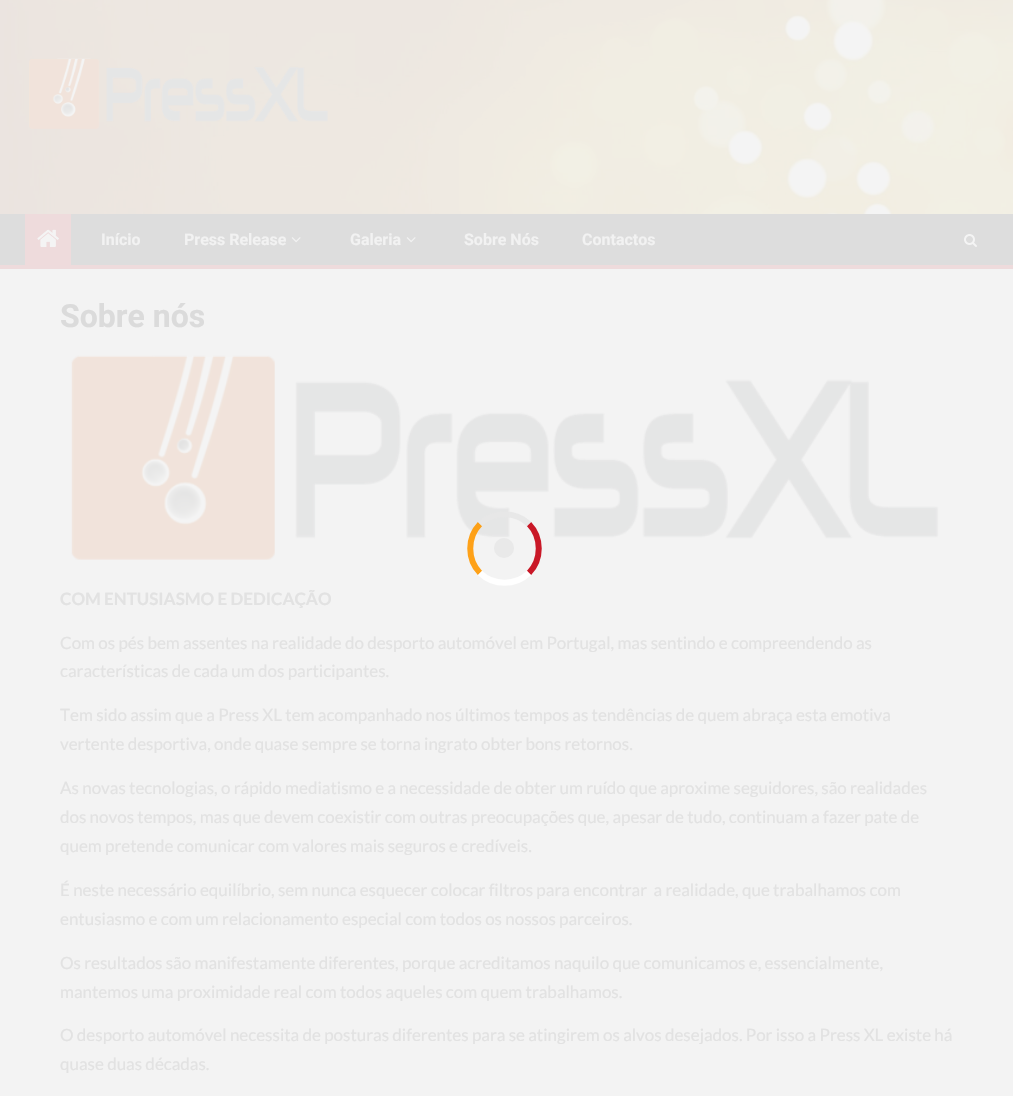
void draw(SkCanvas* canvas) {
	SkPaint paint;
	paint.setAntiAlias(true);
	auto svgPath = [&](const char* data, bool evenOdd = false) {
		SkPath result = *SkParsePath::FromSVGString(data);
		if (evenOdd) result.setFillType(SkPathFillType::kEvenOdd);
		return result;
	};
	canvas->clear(0xfff3f3f3);
	canvas->drawImageRect(SkImages::DeferredFromEncodedData(SkData::MakeFromFileName("img1.png")), SkRect::MakeXYWH(0, 0, 1013, 214), SkSamplingOptions());
	canvas->drawImageRect(SkImages::DeferredFromEncodedData(SkData::MakeFromFileName("img2.png")), SkRect::MakeXYWH(29, 58, 299, 71), SkSamplingOptions());
	paint.setColor(0xffdddddd);
	canvas->drawRect(SkRect::MakeXYWH(0, 214, 1013, 51), paint);
	paint.setColor(0xffeedbdc);
	canvas->drawRect(SkRect::MakeXYWH(0, 265, 1013, 4), paint);
	canvas->drawRect(SkRect::MakeXYWH(25, 214, 46, 51), paint);
	canvas->drawImageRect(SkImages::DeferredFromEncodedData(SkData::MakeFromFileName("img3.png")), SkRect::MakeXYWH(37, 229, 22, 18), SkSamplingOptions());
	SkFont f1(fontMgr->matchFamilyStyle("Roboto", SkFontStyle::Bold()), 16);
	f1.setSubpixel(true);
	paint.setColor(0xfff2f2f2);
	canvas->drawString("Início", 101, 245, f1, paint);
	canvas->drawString("Press Release", 184, 245, f1, paint);
	canvas->drawImageRect(SkImages::DeferredFromEncodedData(SkData::MakeFromFileName("img4.png")), SkRect::MakeXYWH(291, 237, 10, 6), SkSamplingOptions());
	canvas->drawString("Galeria", 350, 245, f1, paint);
	canvas->drawImageRect(SkImages::DeferredFromEncodedData(SkData::MakeFromFileName("img4.png")), SkRect::MakeXYWH(406, 237, 10, 6), SkSamplingOptions());
	canvas->drawString("Sobre Nós", 464, 245, f1, paint);
	canvas->drawString("Contactos", 582, 245, f1, paint);
	canvas->drawImageRect(SkImages::DeferredFromEncodedData(SkData::MakeFromFileName("img5.png")), SkRect::MakeXYWH(964, 234, 13, 13), SkSamplingOptions());
	SkFont f2(fontMgr->matchFamilyStyle("Roboto", SkFontStyle::Bold()), 32);
	f2.setSubpixel(true);
	paint.setColor(0xffdbdbdb);
	canvas->drawString("Sobre nós", 60, 327, f2, paint);
	canvas->drawImageRect(SkImages::DeferredFromEncodedData(SkData::MakeFromFileName("img6.png")), SkRect::MakeXYWH(71, 355, 868, 205), SkSamplingOptions());
	SkFont f3(fontMgr->matchFamilyStyle("Lato", SkFontStyle::Bold()), 17);
	f3.setSubpixel(true);
	paint.setColor(0xffe2e2e2);
	canvas->drawString("COM ENTUSIASMO E DEDICAÇÃO", 60, 605, f3, paint);
	SkFont f4(fontMgr->matchFamilyStyle("Lato", SkFontStyle::Normal()), 17);
	f4.setSubpixel(true);
	canvas->drawString("Com os pés bem assentes na realidade do desporto automóvel em Portugal, mas sentindo e compreendendo as", 60, 649, f4, paint);
	canvas->drawString("características de cada um dos participantes.", 60, 677, f4, paint);
	canvas->drawString("Tem sido assim que a Press XL tem acompanhado nos últimos tempos as tendências de quem abraça esta emotiva", 60, 721, f4, paint);
	canvas->drawString("vertente desportiva, onde quase sempre se torna ingrato obter bons retornos.", 60, 750, f4, paint);
	canvas->drawString("As novas tecnologias, o rápido mediatismo e a necessidade de obter um ruído que aproxime seguidores, são realidades", 60, 794, f4, paint);
	canvas->drawString("dos novos tempos, mas que devem coexistir com outras preocupações que, apesar de tudo, continuam a fazer pate de", 60, 823, f4, paint);
	canvas->drawString("quem pretende comunicar com valores mais seguros e credíveis.", 60, 852, f4, paint);
	canvas->drawString("É neste necessário equilíbrio, sem nunca esquecer colocar filtros para encontrar  a realidade, que trabalhamos com", 60, 896, f4, paint);
	canvas->drawString("entusiasmo e com um relacionamento especial com todos os nossos parceiros.", 60, 925, f4, paint);
	canvas->drawString("Os resultados são manifestamente diferentes, porque acreditamos naquilo que comunicamos e, essencialmente,", 60, 969, f4, paint);
	canvas->drawString("mantemos uma proximidade real com todos aqueles com quem trabalhamos.", 60, 998, f4, paint);
	canvas->drawString("O desporto automóvel necessita de posturas diferentes para se atingirem os alvos desejados. Por isso a Press XL existe há", 60, 1041, f4, paint);
	canvas->drawString("quase duas décadas.", 60, 1070, f4, paint);
	paint.setStroke(true);
	paint.setStrokeWidth(6);
	paint.setColor(0xffc91827);
	canvas->drawPath(svgPath("M529 524C542 537.5 542 559.5 529 573"), paint);
	paint.setColor(0xe6ff9800);
	canvas->drawPath(svgPath("M480 573C467 559.5 467 537.5 480 524"), paint);
	paint.setColor(0xe6e7e7e7);
	canvas->drawPath(svgPath("M480 524C493.5 511 515.5 511 529 524"), paint);
	paint.setColor(0xffffffff);
	canvas->drawPath(svgPath("M529 573C515.5 586 493.5 586 480 573"), paint);
	paint.setStroke(false);
	paint.setColor(0xffe9e9e9);
	canvas->drawCircle(504, 548, 10, paint);
}
